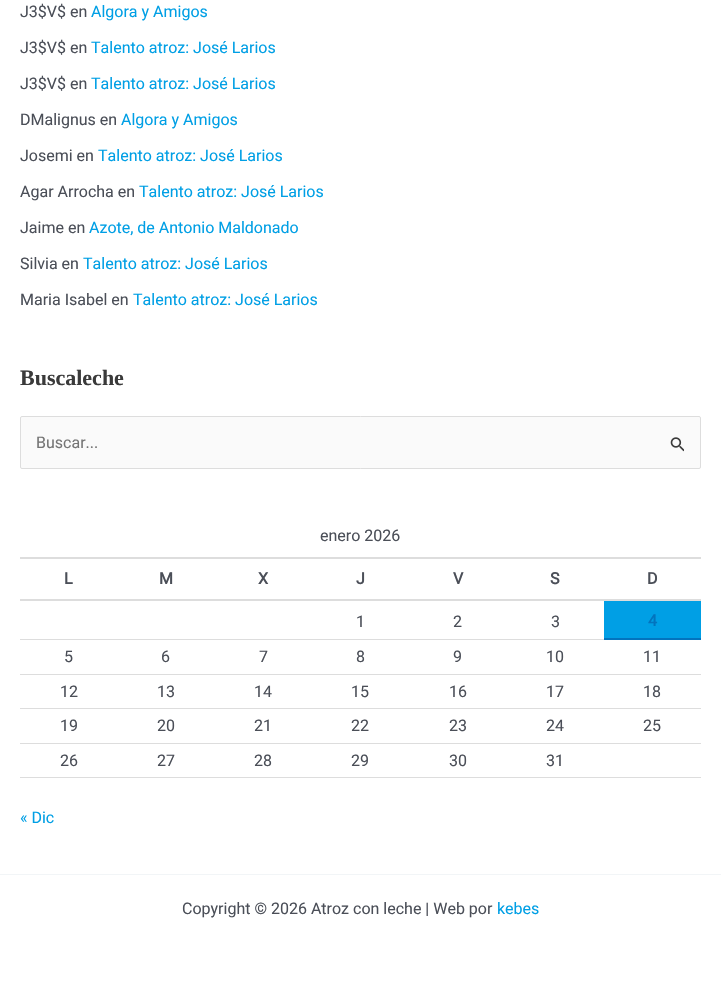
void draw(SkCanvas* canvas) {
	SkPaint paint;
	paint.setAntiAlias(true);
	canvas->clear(0xffffffff);
	SkFont f1(fontMgr->matchFamilyStyle("Roboto", SkFontStyle::Normal()), 16);
	f1.setSubpixel(true);
	paint.setColor(0xff4b4f58);
	canvas->drawString("J3$V$ en", 20, 17, f1, paint);
	paint.setColor(0xff009fe5);
	canvas->drawString("Algora y Amigos", 91, 17, f1, paint);
	paint.setColor(0xff4b4f58);
	canvas->drawString("J3$V$ en", 20, 53, f1, paint);
	paint.setColor(0xff009fe5);
	canvas->drawString("Talento atroz: José Larios", 91, 53, f1, paint);
	paint.setColor(0xff4b4f58);
	canvas->drawString("J3$V$ en", 20, 89, f1, paint);
	paint.setColor(0xff009fe5);
	canvas->drawString("Talento atroz: José Larios", 91, 89, f1, paint);
	paint.setColor(0xff4b4f58);
	canvas->drawString("DMalignus en", 20, 125, f1, paint);
	paint.setColor(0xff009fe5);
	canvas->drawString("Algora y Amigos", 121, 125, f1, paint);
	paint.setColor(0xff4b4f58);
	canvas->drawString("Josemi en", 20, 161, f1, paint);
	paint.setColor(0xff009fe5);
	canvas->drawString("Talento atroz: José Larios", 98, 161, f1, paint);
	paint.setColor(0xff4b4f58);
	canvas->drawString("Agar Arrocha en", 20, 197, f1, paint);
	paint.setColor(0xff009fe5);
	canvas->drawString("Talento atroz: José Larios", 139, 197, f1, paint);
	paint.setColor(0xff4b4f58);
	canvas->drawString("Jaime en", 20, 233, f1, paint);
	paint.setColor(0xff009fe5);
	canvas->drawString("Azote, de Antonio Maldonado", 89, 233, f1, paint);
	paint.setColor(0xff4b4f58);
	canvas->drawString("Silvia en", 20, 269, f1, paint);
	paint.setColor(0xff009fe5);
	canvas->drawString("Talento atroz: José Larios", 83, 269, f1, paint);
	paint.setColor(0xff4b4f58);
	canvas->drawString("Maria Isabel en", 20, 305, f1, paint);
	paint.setColor(0xff009fe5);
	canvas->drawString("Talento atroz: José Larios", 133, 305, f1, paint);
	SkFont f2(fontMgr->matchFamilyStyle("Liberation Serif", SkFontStyle::Bold()), 22);
	f2.setSubpixel(true);
	paint.setColor(0xff3a3a3a);
	canvas->drawString("Buscaleche", 20, 385, f2, paint);
	paint.setColor(0xfffafafa);
	canvas->drawRoundRect(SkRect::MakeXYWH(20.5, 416.5, 680, 52), 1.5, 1.5, paint);
	paint.setStroke(true);
	paint.setStrokeWidth(1);
	paint.setColor(0xffdddddd);
	canvas->drawRoundRect(SkRect::MakeXYWH(20.5, 416.5, 680, 52), 1.5, 1.5, paint);
	paint.setStroke(false);
	paint.setColor(0xff757575);
	canvas->drawString("Buscar...", 36, 448, f1, paint);
	canvas->drawImageRect(SkImages::DeferredFromEncodedData(SkData::MakeFromFileName("img1.png")), SkRect::MakeXYWH(670, 437, 14, 15), SkSamplingOptions());
	paint.setColor(0xff4b4f58);
	canvas->drawString("enero 2026", 320, 541, f1, paint);
	paint.setColor(0xffdddddd);
	canvas->drawRect(SkRect::MakeXYWH(20, 557, 681, 2), paint);
	canvas->drawRect(SkRect::MakeXYWH(20, 599, 681, 2), paint);
	SkFont f3(fontMgr->matchFamilyStyle("Roboto", SkFontStyle::Bold()), 16);
	f3.setSubpixel(true);
	paint.setColor(0xff4b4f58);
	canvas->drawString("L", 64, 584, f3, paint);
	canvas->drawString("M", 159, 584, f3, paint);
	canvas->drawString("X", 258, 584, f3, paint);
	canvas->drawString("J", 356, 584, f3, paint);
	canvas->drawString("V", 453, 584, f3, paint);
	canvas->drawString("S", 550, 584, f3, paint);
	canvas->drawString("D", 647, 584, f3, paint);
	canvas->drawString("1", 356, 627, f1, paint);
	canvas->drawString("2", 453, 627, f1, paint);
	canvas->drawString("3", 551, 627, f1, paint);
	paint.setColor(0xff009fe5);
	canvas->drawRect(SkRect::MakeXYWH(604, 601, 97, 37), paint);
	paint.setColor(0xff0274be);
	canvas->drawRect(SkRect::MakeXYWH(604, 638, 97, 2), paint);
	canvas->drawString("4", 648, 626, f3, paint);
	paint.setColor(0xffdddddd);
	canvas->drawRect(SkRect::MakeXYWH(20, 639, 584, 1), paint);
	canvas->drawRect(SkRect::MakeXYWH(20, 674, 681, 1), paint);
	paint.setColor(0xff4b4f58);
	canvas->drawString("5", 64, 662, f1, paint);
	canvas->drawString("6", 161, 662, f1, paint);
	canvas->drawString("7", 259, 662, f1, paint);
	canvas->drawString("8", 356, 662, f1, paint);
	canvas->drawString("9", 453, 662, f1, paint);
	canvas->drawString("10", 546, 662, f1, paint);
	canvas->drawString("11", 643, 662, f1, paint);
	paint.setColor(0xffdddddd);
	canvas->drawRect(SkRect::MakeXYWH(20, 708, 681, 1), paint);
	paint.setColor(0xff4b4f58);
	canvas->drawString("12", 60, 697, f1, paint);
	canvas->drawString("13", 157, 697, f1, paint);
	canvas->drawString("14", 254, 697, f1, paint);
	canvas->drawString("15", 351, 697, f1, paint);
	canvas->drawString("16", 449, 697, f1, paint);
	canvas->drawString("17", 546, 697, f1, paint);
	canvas->drawString("18", 643, 697, f1, paint);
	paint.setColor(0xffdddddd);
	canvas->drawRect(SkRect::MakeXYWH(20, 743, 681, 1), paint);
	paint.setColor(0xff4b4f58);
	canvas->drawString("19", 60, 731, f1, paint);
	canvas->drawString("20", 157, 731, f1, paint);
	canvas->drawString("21", 254, 731, f1, paint);
	canvas->drawString("22", 351, 731, f1, paint);
	canvas->drawString("23", 449, 731, f1, paint);
	canvas->drawString("24", 546, 731, f1, paint);
	canvas->drawString("25", 643, 731, f1, paint);
	paint.setColor(0xffdddddd);
	canvas->drawRect(SkRect::MakeXYWH(20, 777, 681, 1), paint);
	paint.setColor(0xff4b4f58);
	canvas->drawString("26", 60, 766, f1, paint);
	canvas->drawString("27", 157, 766, f1, paint);
	canvas->drawString("28", 254, 766, f1, paint);
	canvas->drawString("29", 351, 766, f1, paint);
	canvas->drawString("30", 449, 766, f1, paint);
	canvas->drawString("31", 546, 766, f1, paint);
	paint.setColor(0xff009fe5);
	canvas->drawString("« Dic", 20, 823, f1, paint);
	paint.setColor(0xfff2f5f7);
	canvas->drawRect(SkRect::MakeXYWH(0, 874, 721, 1), paint);
	paint.setColor(0xff4b4f58);
	canvas->drawString("Copyright © 2026 Atroz con leche | Web por", 182, 914, f1, paint);
	paint.setColor(0xff009fe5);
	canvas->drawString("kebes", 497, 914, f1, paint);
}
